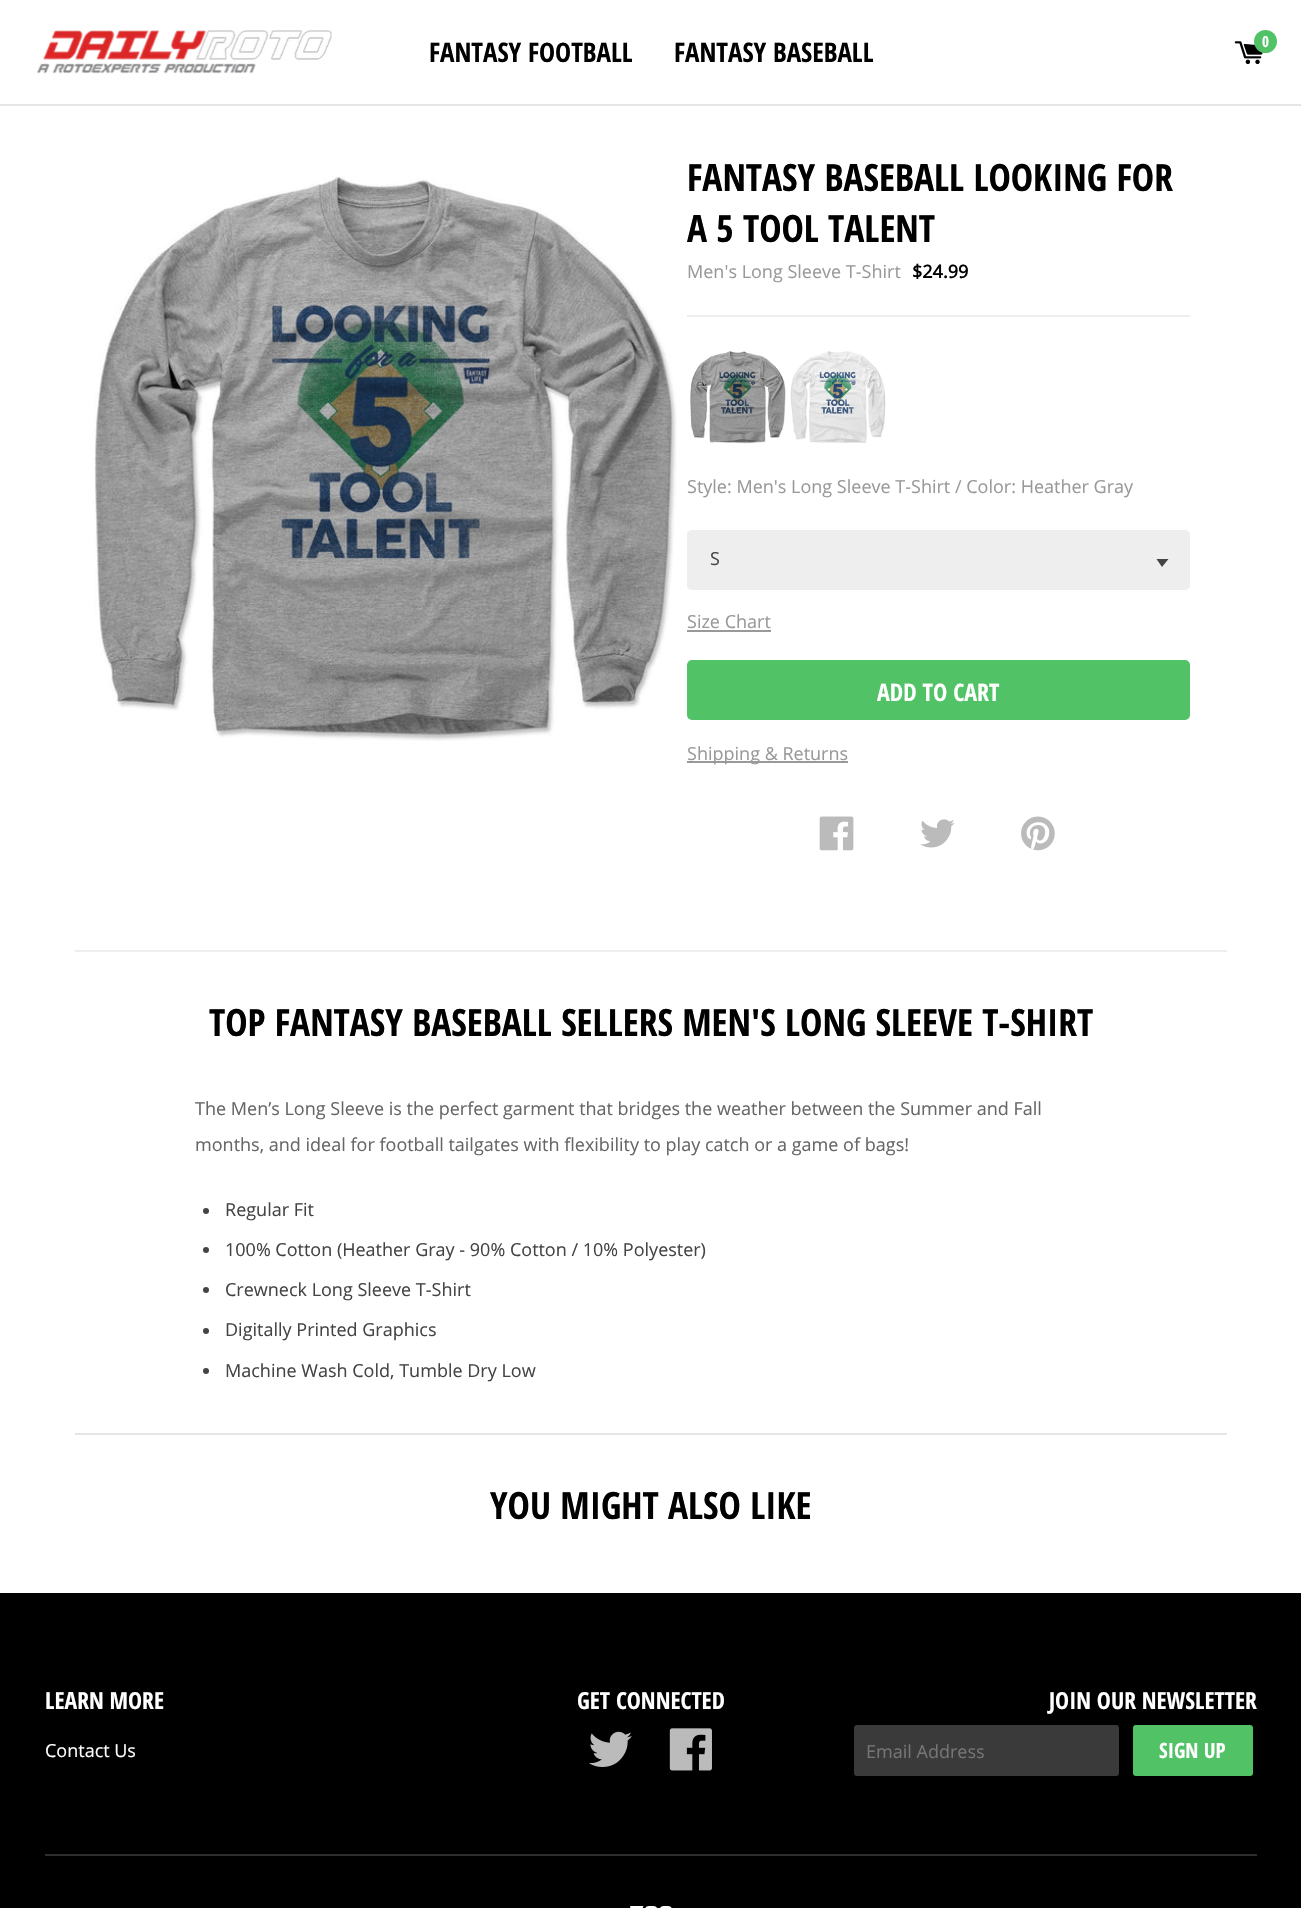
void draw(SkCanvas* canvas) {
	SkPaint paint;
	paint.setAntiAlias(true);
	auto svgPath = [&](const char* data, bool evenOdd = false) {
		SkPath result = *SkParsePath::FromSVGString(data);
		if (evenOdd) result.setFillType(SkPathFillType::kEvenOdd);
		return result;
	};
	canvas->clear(0xffffffff);
	paint.setColor(0xffe5e5e5);
	canvas->drawRect(SkRect::MakeXYWH(0, 104, 1301, 2), paint);
	canvas->drawImageRect(SkImages::DeferredFromEncodedData(SkData::MakeFromFileName("img1.png")), SkRect::MakeXYWH(37, 30, 295, 44), SkSamplingOptions());
	SkFont f1(fontMgr->matchFamilyStyle("Open Sans Condensed", SkFontStyle::Bold()), 27);
	f1.setSubpixel(true);
	paint.setColor(0xff000000);
	canvas->drawString("FANTASY FOOTBALL", 429, 62, f1, paint);
	canvas->drawString("FANTASY BASEBALL", 674, 62, f1, paint);
	canvas->drawImageRect(SkImages::DeferredFromEncodedData(SkData::MakeFromFileName("img2.png")), SkRect::MakeXYWH(1234, 41, 29, 24), SkSamplingOptions());
	paint.setColor(0xff52c266);
	canvas->drawCircle(1265.5, 41.5, 11.5, paint);
	SkFont f2(fontMgr->matchFamilyStyle("Open Sans Condensed", SkFontStyle::Bold()), 15);
	f2.setSubpixel(true);
	paint.setColor(0xffffffff);
	canvas->drawString("0", 1262, 47, f2, paint);
	canvas->drawImageRect(SkImages::DeferredFromEncodedData(SkData::MakeFromFileName("img3.png")), SkRect::MakeXYWH(93, 176, 584, 565), SkSamplingOptions());
	SkFont f3(fontMgr->matchFamilyStyle("Open Sans Condensed", SkFontStyle::Bold()), 37.5);
	f3.setSubpixel(true);
	paint.setColor(0xff000000);
	canvas->drawString("FANTASY BASEBALL LOOKING FOR", 687, 191, f3, paint);
	canvas->drawString("A 5 TOOL TALENT", 687, 242, f3, paint);
	paint.setColor(0xffeeeeee);
	canvas->drawRect(SkRect::MakeXYWH(687, 315, 503, 2), paint);
	SkFont f4(fontMgr->matchFamilyStyle("Open Sans", SkFontStyle::Normal()), 18);
	f4.setSubpixel(true);
	paint.setColor(0xff999999);
	canvas->drawString("Men's Long Sleeve T-Shirt", 687, 278, f4, paint);
	SkFont f5(fontMgr->matchFamilyStyle("Open Sans", SkFontStyle::Bold()), 18);
	f5.setSubpixel(true);
	paint.setColor(0xff000000);
	canvas->drawString("$24.99", 912, 278, f5, paint);
	canvas->drawImageRect(SkImages::DeferredFromEncodedData(SkData::MakeFromFileName("img4.png")), SkRect::MakeXYWH(690, 351, 96, 93), SkSamplingOptions());
	canvas->drawImageRect(SkImages::DeferredFromEncodedData(SkData::MakeFromFileName("img5.png")), SkRect::MakeXYWH(790, 351, 96, 92), SkSamplingOptions());
	paint.setColor(0xff999999);
	canvas->drawString("Style: Men's Long Sleeve T-Shirt / Color: Heather Gray", 687, 493, f4, paint);
	paint.setColor(0xffeeeeee);
	canvas->drawRoundRect(SkRect::MakeXYWH(687, 530, 503, 60), 5, 5, paint);
	paint.setColor(0xff444444);
	canvas->drawString("S", 710, 565, f4, paint);
	canvas->drawPath(svgPath("M1156.5 559L1162 567L1168.5 559Z"), paint);
	paint.setColor(0xff999999);
	canvas->drawString("Size Chart", 687, 628, f4, paint);
	canvas->drawRect(SkRect::MakeXYWH(687, 630, 84, 2), paint);
	paint.setColor(0xff52c266);
	canvas->drawRoundRect(SkRect::MakeXYWH(687, 660, 503, 60), 5, 5, paint);
	SkFont f6(fontMgr->matchFamilyStyle("Open Sans Condensed", SkFontStyle::Bold()), 24);
	f6.setSubpixel(true);
	paint.setColor(0xffffffff);
	canvas->drawString("ADD TO CART", 877, 701, f6, paint);
	paint.setColor(0xff999999);
	canvas->drawRect(SkRect::MakeXYWH(687, 761, 161, 2), paint);
	canvas->drawString("Shipping & Returns", 687, 760, f4, paint);
	canvas->drawImageRect(SkImages::DeferredFromEncodedData(SkData::MakeFromFileName("img6.png")), SkRect::MakeXYWH(819, 816, 35, 35), SkSamplingOptions());
	canvas->drawImageRect(SkImages::DeferredFromEncodedData(SkData::MakeFromFileName("img7.png")), SkRect::MakeXYWH(920, 819, 35, 29), SkSamplingOptions());
	canvas->drawImageRect(SkImages::DeferredFromEncodedData(SkData::MakeFromFileName("img8.png")), SkRect::MakeXYWH(1021, 816, 34, 35), SkSamplingOptions());
	paint.setColor(0xffeeeeee);
	canvas->drawRect(SkRect::MakeXYWH(75, 950, 1152, 2), paint);
	paint.setColor(0xff000000);
	canvas->drawString("TOP FANTASY BASEBALL SELLERS MEN'S LONG SLEEVE T-SHIRT", 209, 1036, f3, paint);
	paint.setColor(0xff666666);
	canvas->drawString("The Men’s Long Sleeve is the perfect garment that bridges the weather between the Summer and Fall", 195, 1115, f4, paint);
	canvas->drawString("months, and ideal for football tailgates with flexibility to play catch or a game of bags!", 195, 1151, f4, paint);
	paint.setColor(0xff444444);
	canvas->drawCircle(206, 1211, 3, paint);
	canvas->drawString("Regular Fit", 225, 1216, f4, paint);
	canvas->drawCircle(206, 1250, 3, paint);
	canvas->drawString("100% Cotton (Heather Gray - 90% Cotton / 10% Polyester)", 225, 1256, f4, paint);
	canvas->drawCircle(206, 1290, 3, paint);
	canvas->drawString("Crewneck Long Sleeve T-Shirt", 225, 1296, f4, paint);
	canvas->drawCircle(206, 1331, 3, paint);
	canvas->drawString("Digitally Printed Graphics", 225, 1336, f4, paint);
	canvas->drawCircle(206, 1371, 3, paint);
	canvas->drawString("Machine Wash Cold, Tumble Dry Low", 225, 1377, f4, paint);
	paint.setColor(0xffe5e5e5);
	canvas->drawRect(SkRect::MakeXYWH(75, 1433, 1152, 2), paint);
	paint.setColor(0xff000000);
	canvas->drawString("YOU MIGHT ALSO LIKE", 490, 1519, f3, paint);
	canvas->drawRect(SkRect::MakeXYWH(0, 1593, 1301, 315), paint);
	SkFont f7(fontMgr->matchFamilyStyle("Open Sans Condensed", SkFontStyle::Bold()), 23.6);
	f7.setSubpixel(true);
	paint.setColor(0xffffffff);
	canvas->drawString("LEARN MORE", 45, 1709, f7, paint);
	canvas->drawString("Contact Us", 45, 1757, f4, paint);
	canvas->drawString("GET CONNECTED", 577, 1709, f7, paint);
	canvas->drawImageRect(SkImages::DeferredFromEncodedData(SkData::MakeFromFileName("img9.png")), SkRect::MakeXYWH(588, 1731, 44, 36), SkSamplingOptions());
	canvas->drawImageRect(SkImages::DeferredFromEncodedData(SkData::MakeFromFileName("img10.png")), SkRect::MakeXYWH(669, 1728, 43, 43), SkSamplingOptions());
	canvas->drawString("JOIN OUR NEWSLETTER", 1049, 1709, f7, paint);
	paint.setColor(0xff3a3a3a);
	canvas->drawRoundRect(SkRect::MakeXYWH(854, 1725, 265, 51), 3, 3, paint);
	paint.setColor(0xff757575);
	canvas->drawString("Email Address", 866, 1758, f4, paint);
	paint.setColor(0xff52c266);
	canvas->drawRoundRect(SkRect::MakeXYWH(1133, 1725, 120, 51), 3, 3, paint);
	SkFont f8(fontMgr->matchFamilyStyle("Open Sans Condensed", SkFontStyle::Bold()), 21);
	f8.setSubpixel(true);
	paint.setColor(0xffffffff);
	canvas->drawString("SIGN UP", 1159, 1758, f8, paint);
	paint.setColor(0xff2e2e2e);
	canvas->drawRect(SkRect::MakeXYWH(45, 1854, 1212, 2), paint);
	canvas->drawImageRect(SkImages::DeferredFromEncodedData(SkData::MakeFromFileName("img11.png")), SkRect::MakeXYWH(630, 1906, 42, 2), SkSamplingOptions());
}
